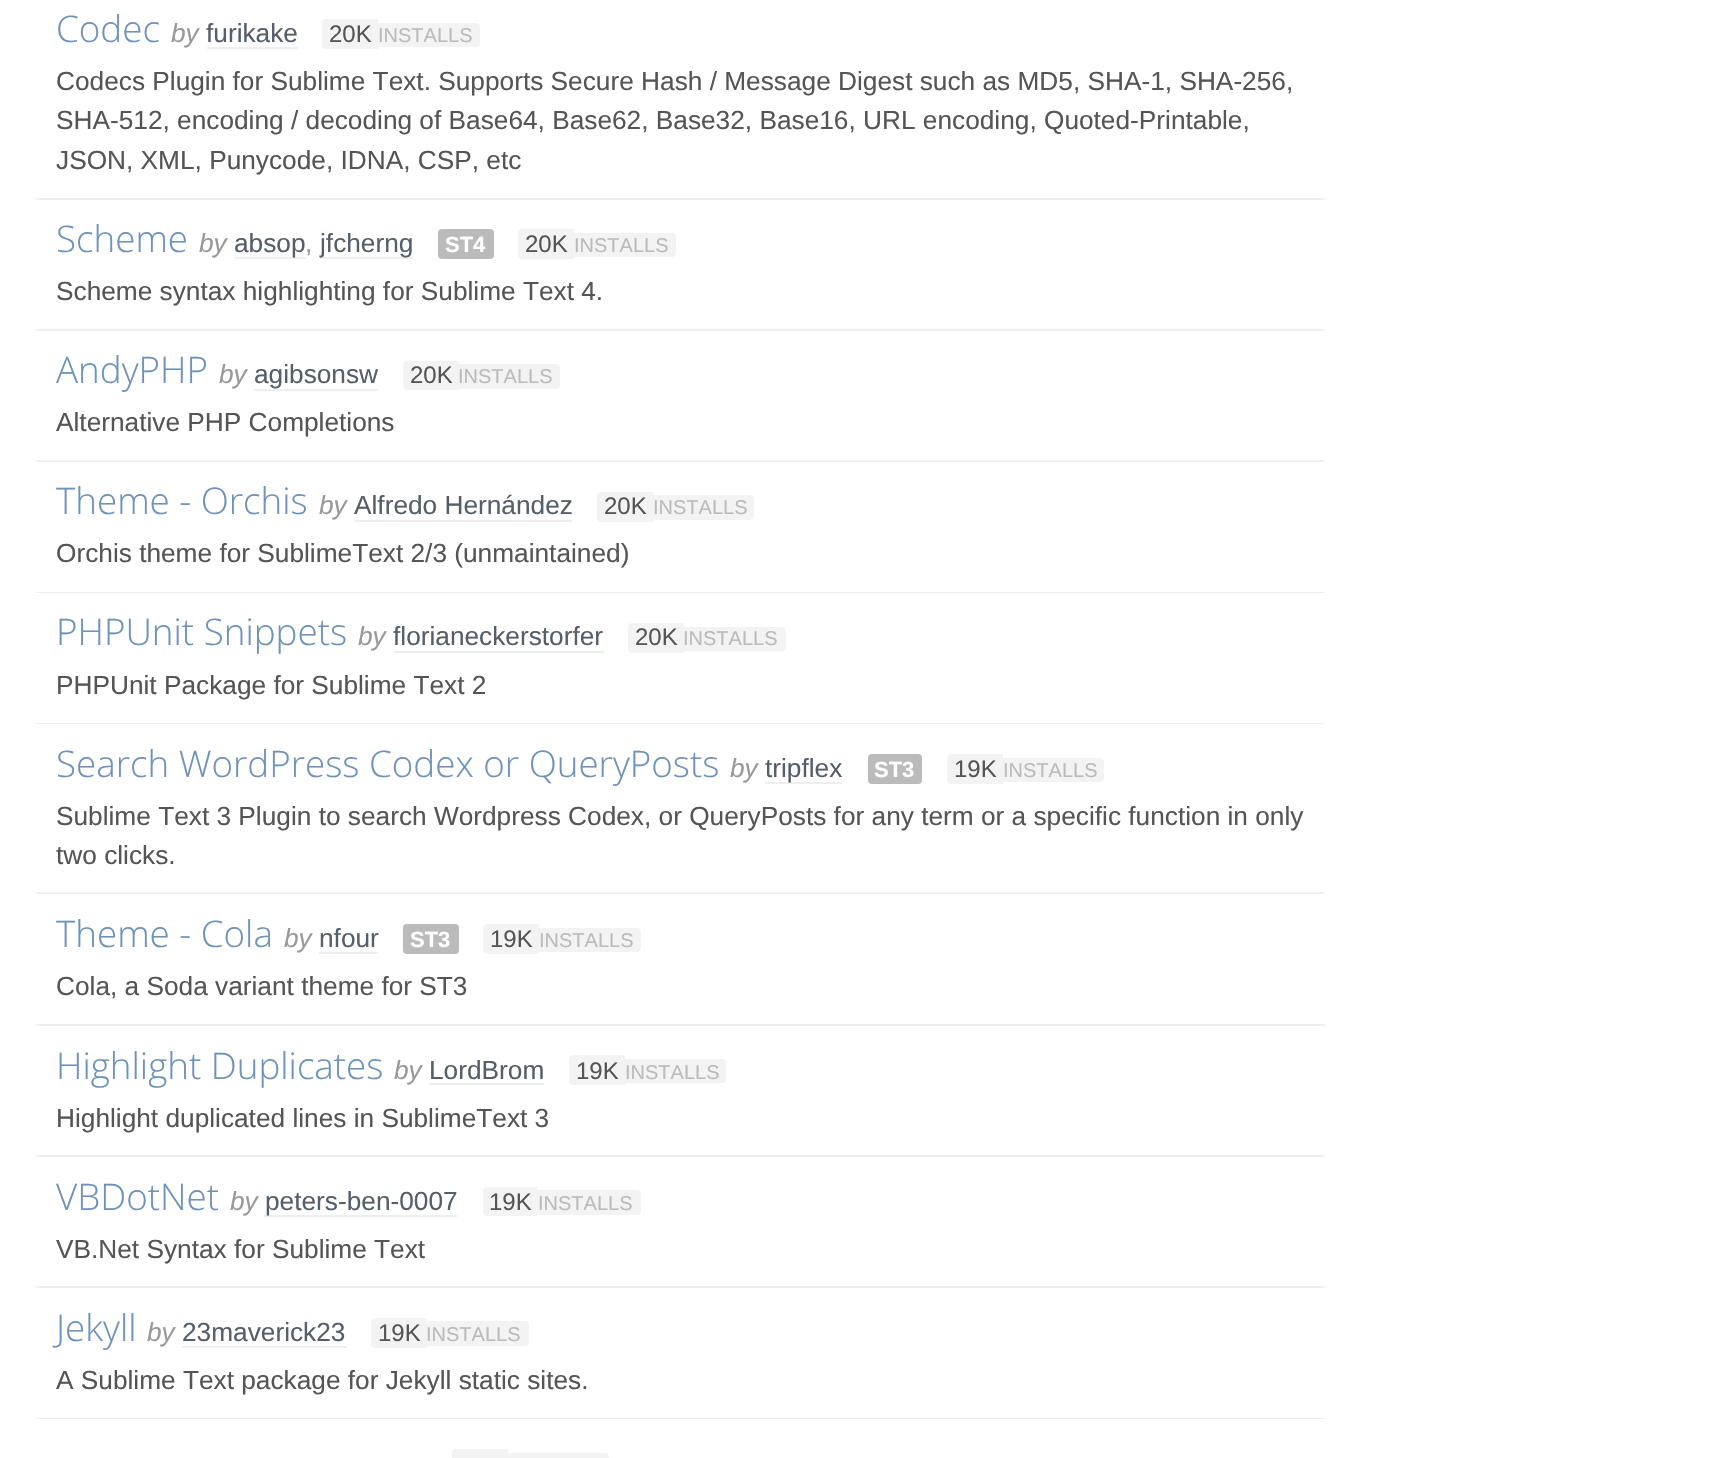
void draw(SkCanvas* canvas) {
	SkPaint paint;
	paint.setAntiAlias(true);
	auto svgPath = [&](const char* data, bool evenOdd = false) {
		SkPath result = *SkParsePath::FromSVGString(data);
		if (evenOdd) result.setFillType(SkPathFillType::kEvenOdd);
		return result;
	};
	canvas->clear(0xffffffff);
	SkFont f1(fontMgr->matchFamilyStyle("Open Sans", SkFontStyle(300, SkFontStyle::kNormal_Width, SkFontStyle::kUpright_Slant)), 36.75);
	f1.setSubpixel(true);
	paint.setColor(0xff6f92ba);
	canvas->drawString("Codec", 56, 42, f1, paint);
	SkFont f2(fontMgr->matchFamilyStyle("Liberation Sans", SkFontStyle::Italic()), 26.25);
	f2.setSubpixel(true);
	paint.setColor(0xff999999);
	canvas->drawString("by", 171, 42, f2, paint);
	SkFont f3(fontMgr->matchFamilyStyle("Liberation Sans", SkFontStyle::Normal()), 26.25);
	f3.setSubpixel(true);
	paint.setColor(0xff555e69);
	canvas->drawString("furikake", 206, 42, f3, paint);
	paint.setColor(0xffeeeeee);
	canvas->drawRect(SkRect::MakeXYWH(207, 47, 91, 2), paint);
	paint.setColor(0xfff3f3f3);
	canvas->drawPath(svgPath("M326 19H378V49H326C324 49 322 47 322 45V23C322 21 324 19 326 19Z"), paint);
	SkFont f4(fontMgr->matchFamilyStyle("Liberation Sans", SkFontStyle::Normal()), 24);
	f4.setSubpixel(true);
	paint.setColor(0xff555555);
	canvas->drawString("20K", 329, 42, f4, paint);
	paint.setColor(0xfff3f3f3);
	canvas->drawPath(svgPath("M378 23H476C478 23 480 25 480 27V43C480 45 478 47 476 47H378Z"), paint);
	SkFont f5(fontMgr->matchFamilyStyle("Liberation Sans", SkFontStyle::Normal()), 20);
	f5.setSubpixel(true);
	paint.setColor(0xffbbbbbb);
	canvas->drawString("INSTALLS", 378, 42, f5, paint);
	paint.setColor(0xff555555);
	canvas->drawString("Codecs Plugin for Sublime Text. Supports Secure Hash / Message Digest such as MD5, SHA-1, SHA-256,", 56, 90, f3, paint);
	canvas->drawString("SHA-512, encoding / decoding of Base64, Base62, Base32, Base16, URL encoding, Quoted-Printable,", 56, 129, f3, paint);
	canvas->drawString("JSON, XML, Punycode, IDNA, CSP, etc", 56, 169, f3, paint);
	paint.setColor(0xffeeeeee);
	canvas->drawPath(svgPath("M35 198H1326L1323 200H38Z"), paint);
	paint.setColor(0xff6f92ba);
	canvas->drawString("Scheme", 56, 252, f1, paint);
	paint.setColor(0xff999999);
	canvas->drawString("by", 199, 252, f2, paint);
	paint.setColor(0xffeeeeee);
	canvas->drawRect(SkRect::MakeXYWH(235, 257, 71, 2), paint);
	paint.setColor(0xff555e69);
	canvas->drawString("absop", 234, 252, f3, paint);
	paint.setColor(0xff999999);
	canvas->drawString(",", 305, 252, f3, paint);
	paint.setColor(0xffeeeeee);
	canvas->drawRect(SkRect::MakeXYWH(320, 257, 93, 2), paint);
	paint.setColor(0xff555e69);
	canvas->drawString("jfcherng", 320, 252, f3, paint);
	paint.setColor(0xffbbbbbb);
	canvas->drawRoundRect(SkRect::MakeXYWH(438, 229, 56, 30), 4, 4, paint);
	SkFont f6(fontMgr->matchFamilyStyle("Liberation Sans", SkFontStyle::Bold()), 22);
	f6.setSubpixel(true);
	paint.setColor(0xffffffff);
	canvas->drawString("ST4", 445, 252, f6, paint);
	paint.setColor(0xfff3f3f3);
	canvas->drawPath(svgPath("M522 229H574V259H522C520 259 518 257 518 255V233C518 231 520 229 522 229Z"), paint);
	paint.setColor(0xff555555);
	canvas->drawString("20K", 525, 252, f4, paint);
	paint.setColor(0xfff3f3f3);
	canvas->drawPath(svgPath("M574 233H672C674 233 676 235 676 237V253C676 255 674 257 672 257H574Z"), paint);
	paint.setColor(0xffbbbbbb);
	canvas->drawString("INSTALLS", 574, 252, f5, paint);
	paint.setColor(0xff555555);
	canvas->drawString("Scheme syntax highlighting for Sublime Text 4.", 56, 300, f3, paint);
	paint.setColor(0xffeeeeee);
	canvas->drawPath(svgPath("M35 329H1326L1323 331H38Z"), paint);
	paint.setColor(0xff6f92ba);
	canvas->drawString("AndyPHP", 56, 383, f1, paint);
	paint.setColor(0xff999999);
	canvas->drawString("by", 219, 383, f2, paint);
	paint.setColor(0xff555e69);
	canvas->drawString("agibsonsw", 254, 383, f3, paint);
	paint.setColor(0xffeeeeee);
	canvas->drawRect(SkRect::MakeXYWH(254, 389, 124, 2), paint);
	paint.setColor(0xfff3f3f3);
	canvas->drawPath(svgPath("M407 361H459V390H407C405 390 403 388 403 386V365C403 363 405 361 407 361Z"), paint);
	paint.setColor(0xff555555);
	canvas->drawString("20K", 410, 383, f4, paint);
	paint.setColor(0xfff3f3f3);
	canvas->drawPath(svgPath("M459 364H556C558 364 560 366 560 368V385C560 387 558 389 556 389H459Z"), paint);
	paint.setColor(0xffbbbbbb);
	canvas->drawString("INSTALLS", 458, 383, f5, paint);
	paint.setColor(0xff555555);
	canvas->drawString("Alternative PHP Completions", 56, 431, f3, paint);
	paint.setColor(0xffeeeeee);
	canvas->drawPath(svgPath("M35 460H1326L1323 462H38Z"), paint);
	paint.setColor(0xff6f92ba);
	canvas->drawString("Theme - Orchis", 56, 514, f1, paint);
	paint.setColor(0xff999999);
	canvas->drawString("by", 319, 514, f2, paint);
	paint.setColor(0xffeeeeee);
	canvas->drawRect(SkRect::MakeXYWH(354, 520, 218, 2), paint);
	paint.setColor(0xff555e69);
	canvas->drawString("Alfredo Hernández", 354, 514, f3, paint);
	paint.setColor(0xfff3f3f3);
	canvas->drawPath(svgPath("M601 492H653V522H601C599 522 597 520 597 518V496C597 494 599 492 601 492Z"), paint);
	paint.setColor(0xff555555);
	canvas->drawString("20K", 604, 514, f4, paint);
	paint.setColor(0xfff3f3f3);
	canvas->drawPath(svgPath("M653 495H750C752 495 754 497 754 499V516C754 518 752 520 750 520H653Z"), paint);
	paint.setColor(0xffbbbbbb);
	canvas->drawString("INSTALLS", 653, 514, f5, paint);
	paint.setColor(0xff555555);
	canvas->drawString("Orchis theme for SublimeText 2/3 (unmaintained)", 56, 562, f3, paint);
	paint.setColor(0xffeeeeee);
	canvas->drawPath(svgPath("M35 592H1326L1323 593H38Z"), paint);
	paint.setColor(0xff6f92ba);
	canvas->drawString("PHPUnit Snippets", 56, 645, f1, paint);
	paint.setColor(0xff999999);
	canvas->drawString("by", 358, 645, f2, paint);
	paint.setColor(0xff555e69);
	canvas->drawString("florianeckerstorfer", 393, 645, f3, paint);
	paint.setColor(0xffeeeeee);
	canvas->drawRect(SkRect::MakeXYWH(394, 651, 210, 2), paint);
	paint.setColor(0xfff3f3f3);
	canvas->drawPath(svgPath("M632 623H684V653H632C630 653 628 651 628 649V627C628 625 630 623 632 623Z"), paint);
	paint.setColor(0xff555555);
	canvas->drawString("20K", 635, 645, f4, paint);
	paint.setColor(0xfff3f3f3);
	canvas->drawPath(svgPath("M684 627H782C784 627 786 629 786 631V647C786 649 784 651 782 651H684Z"), paint);
	paint.setColor(0xffbbbbbb);
	canvas->drawString("INSTALLS", 683, 645, f5, paint);
	paint.setColor(0xff555555);
	canvas->drawString("PHPUnit Package for Sublime Text 2", 56, 694, f3, paint);
	paint.setColor(0xffeeeeee);
	canvas->drawPath(svgPath("M35 723H1326L1323 724H38Z"), paint);
	paint.setColor(0xff6f92ba);
	canvas->drawString("Search WordPress Codex or QueryPosts", 56, 777, f1, paint);
	paint.setColor(0xff999999);
	canvas->drawString("by", 730, 777, f2, paint);
	paint.setColor(0xffeeeeee);
	canvas->drawRect(SkRect::MakeXYWH(765, 782, 77, 2), paint);
	paint.setColor(0xff555e69);
	canvas->drawString("tripflex", 765, 777, f3, paint);
	paint.setColor(0xffbbbbbb);
	canvas->drawRoundRect(SkRect::MakeXYWH(868, 754, 54, 30), 4, 4, paint);
	paint.setColor(0xffffffff);
	canvas->drawString("ST3", 874, 777, f6, paint);
	paint.setColor(0xfff3f3f3);
	canvas->drawPath(svgPath("M951 754H1003V784H951C949 784 947 782 947 780V758C947 756 949 754 951 754Z"), paint);
	paint.setColor(0xff555555);
	canvas->drawString("19K", 954, 777, f4, paint);
	paint.setColor(0xfff3f3f3);
	canvas->drawPath(svgPath("M1003 758H1100C1102 758 1104 760 1104 762V778C1104 780 1102 782 1100 782H1003Z"), paint);
	paint.setColor(0xffbbbbbb);
	canvas->drawString("INSTALLS", 1003, 777, f5, paint);
	paint.setColor(0xff555555);
	canvas->drawString("Sublime Text 3 Plugin to search Wordpress Codex, or QueryPosts for any term or a specific function in only", 56, 825, f3, paint);
	canvas->drawString("two clicks.", 56, 864, f3, paint);
	paint.setColor(0xffeeeeee);
	canvas->drawPath(svgPath("M35 892H1326L1323 894H38Z"), paint);
	paint.setColor(0xff6f92ba);
	canvas->drawString("Theme - Cola", 56, 947, f1, paint);
	paint.setColor(0xff999999);
	canvas->drawString("by", 284, 947, f2, paint);
	paint.setColor(0xff555e69);
	canvas->drawString("nfour", 319, 947, f3, paint);
	paint.setColor(0xffeeeeee);
	canvas->drawRect(SkRect::MakeXYWH(319, 952, 59, 2), paint);
	paint.setColor(0xffbbbbbb);
	canvas->drawRoundRect(SkRect::MakeXYWH(403, 924, 56, 30), 4, 4, paint);
	paint.setColor(0xffffffff);
	canvas->drawString("ST3", 410, 947, f6, paint);
	paint.setColor(0xfff3f3f3);
	canvas->drawPath(svgPath("M487 924H539V954H487C485 954 483 952 483 950V928C483 926 485 924 487 924Z"), paint);
	paint.setColor(0xff555555);
	canvas->drawString("19K", 490, 947, f4, paint);
	paint.setColor(0xfff3f3f3);
	canvas->drawPath(svgPath("M539 928H637C639 928 641 930 641 932V948C641 950 639 952 637 952H539Z"), paint);
	paint.setColor(0xffbbbbbb);
	canvas->drawString("INSTALLS", 539, 947, f5, paint);
	paint.setColor(0xff555555);
	canvas->drawString("Cola, a Soda variant theme for ST3", 56, 995, f3, paint);
	paint.setColor(0xffeeeeee);
	canvas->drawPath(svgPath("M35 1024H1326L1323 1026H38Z"), paint);
	paint.setColor(0xff6f92ba);
	canvas->drawString("Highlight Duplicates", 56, 1079, f1, paint);
	paint.setColor(0xff999999);
	canvas->drawString("by", 394, 1079, f2, paint);
	paint.setColor(0xffeeeeee);
	canvas->drawRect(SkRect::MakeXYWH(429, 1083, 115, 2), paint);
	paint.setColor(0xff555e69);
	canvas->drawString("LordBrom", 429, 1079, f3, paint);
	paint.setColor(0xfff3f3f3);
	canvas->drawPath(svgPath("M573 1055H625V1085H573C571 1085 569 1083 569 1081V1059C569 1057 571 1055 573 1055Z"), paint);
	paint.setColor(0xff555555);
	canvas->drawString("19K", 576, 1079, f4, paint);
	paint.setColor(0xfff3f3f3);
	canvas->drawPath(svgPath("M625 1059H722C724 1059 726 1061 726 1063V1079C726 1081 724 1083 722 1083H625Z"), paint);
	paint.setColor(0xffbbbbbb);
	canvas->drawString("INSTALLS", 625, 1079, f5, paint);
	paint.setColor(0xff555555);
	canvas->drawString("Highlight duplicated lines in SublimeText 3", 56, 1127, f3, paint);
	paint.setColor(0xffeeeeee);
	canvas->drawPath(svgPath("M35 1155H1326L1323 1157H38Z"), paint);
	paint.setColor(0xff6f92ba);
	canvas->drawString("VBDotNet", 56, 1210, f1, paint);
	paint.setColor(0xff999999);
	canvas->drawString("by", 230, 1210, f2, paint);
	paint.setColor(0xffeeeeee);
	canvas->drawRect(SkRect::MakeXYWH(264, 1215, 193, 2), paint);
	paint.setColor(0xff555e69);
	canvas->drawString("peters-ben-0007", 265, 1210, f3, paint);
	paint.setColor(0xfff3f3f3);
	canvas->drawPath(svgPath("M487 1187H537V1216H487C485 1216 483 1214 483 1212V1191C483 1189 485 1187 487 1187Z"), paint);
	paint.setColor(0xff555555);
	canvas->drawString("19K", 489, 1210, f4, paint);
	paint.setColor(0xfff3f3f3);
	canvas->drawPath(svgPath("M537 1190H637C639 1190 641 1192 641 1194V1211C641 1213 639 1215 637 1215H537Z"), paint);
	paint.setColor(0xffbbbbbb);
	canvas->drawString("INSTALLS", 538, 1210, f5, paint);
	paint.setColor(0xff555555);
	canvas->drawString("VB.Net Syntax for Sublime Text", 56, 1258, f3, paint);
	paint.setColor(0xffeeeeee);
	canvas->drawPath(svgPath("M35 1286H1326L1323 1288H38Z"), paint);
	paint.setColor(0xff6f92ba);
	canvas->drawString("Jekyll", 56, 1341, f1, paint);
	paint.setColor(0xff999999);
	canvas->drawString("by", 147, 1341, f2, paint);
	paint.setColor(0xffeeeeee);
	canvas->drawRect(SkRect::MakeXYWH(182, 1346, 165, 2), paint);
	paint.setColor(0xff555e69);
	canvas->drawString("23maverick23", 182, 1341, f3, paint);
	paint.setColor(0xfff3f3f3);
	canvas->drawPath(svgPath("M375 1318H427V1348H375C373 1348 371 1346 371 1344V1322C371 1320 373 1318 375 1318Z"), paint);
	paint.setColor(0xff555555);
	canvas->drawString("19K", 378, 1341, f4, paint);
	paint.setColor(0xfff3f3f3);
	canvas->drawPath(svgPath("M427 1321H525C527 1321 529 1323 529 1325V1342C529 1344 527 1346 525 1346H427Z"), paint);
	paint.setColor(0xffbbbbbb);
	canvas->drawString("INSTALLS", 426, 1341, f5, paint);
	paint.setColor(0xff555555);
	canvas->drawString("A Sublime Text package for Jekyll static sites.", 56, 1389, f3, paint);
	paint.setColor(0xffeeeeee);
	canvas->drawPath(svgPath("M35 1418H1326L1323 1419H38Z"), paint);
	paint.setColor(0xfff3f3f3);
	canvas->drawPath(svgPath("M456 1449H508V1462H456C454 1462 452 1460 452 1458V1453C452 1451 454 1449 456 1449Z"), paint);
	canvas->drawPath(svgPath("M508 1453H605C607 1453 609 1455 609 1457V1458C609 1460 607 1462 605 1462H508Z"), paint);
}
